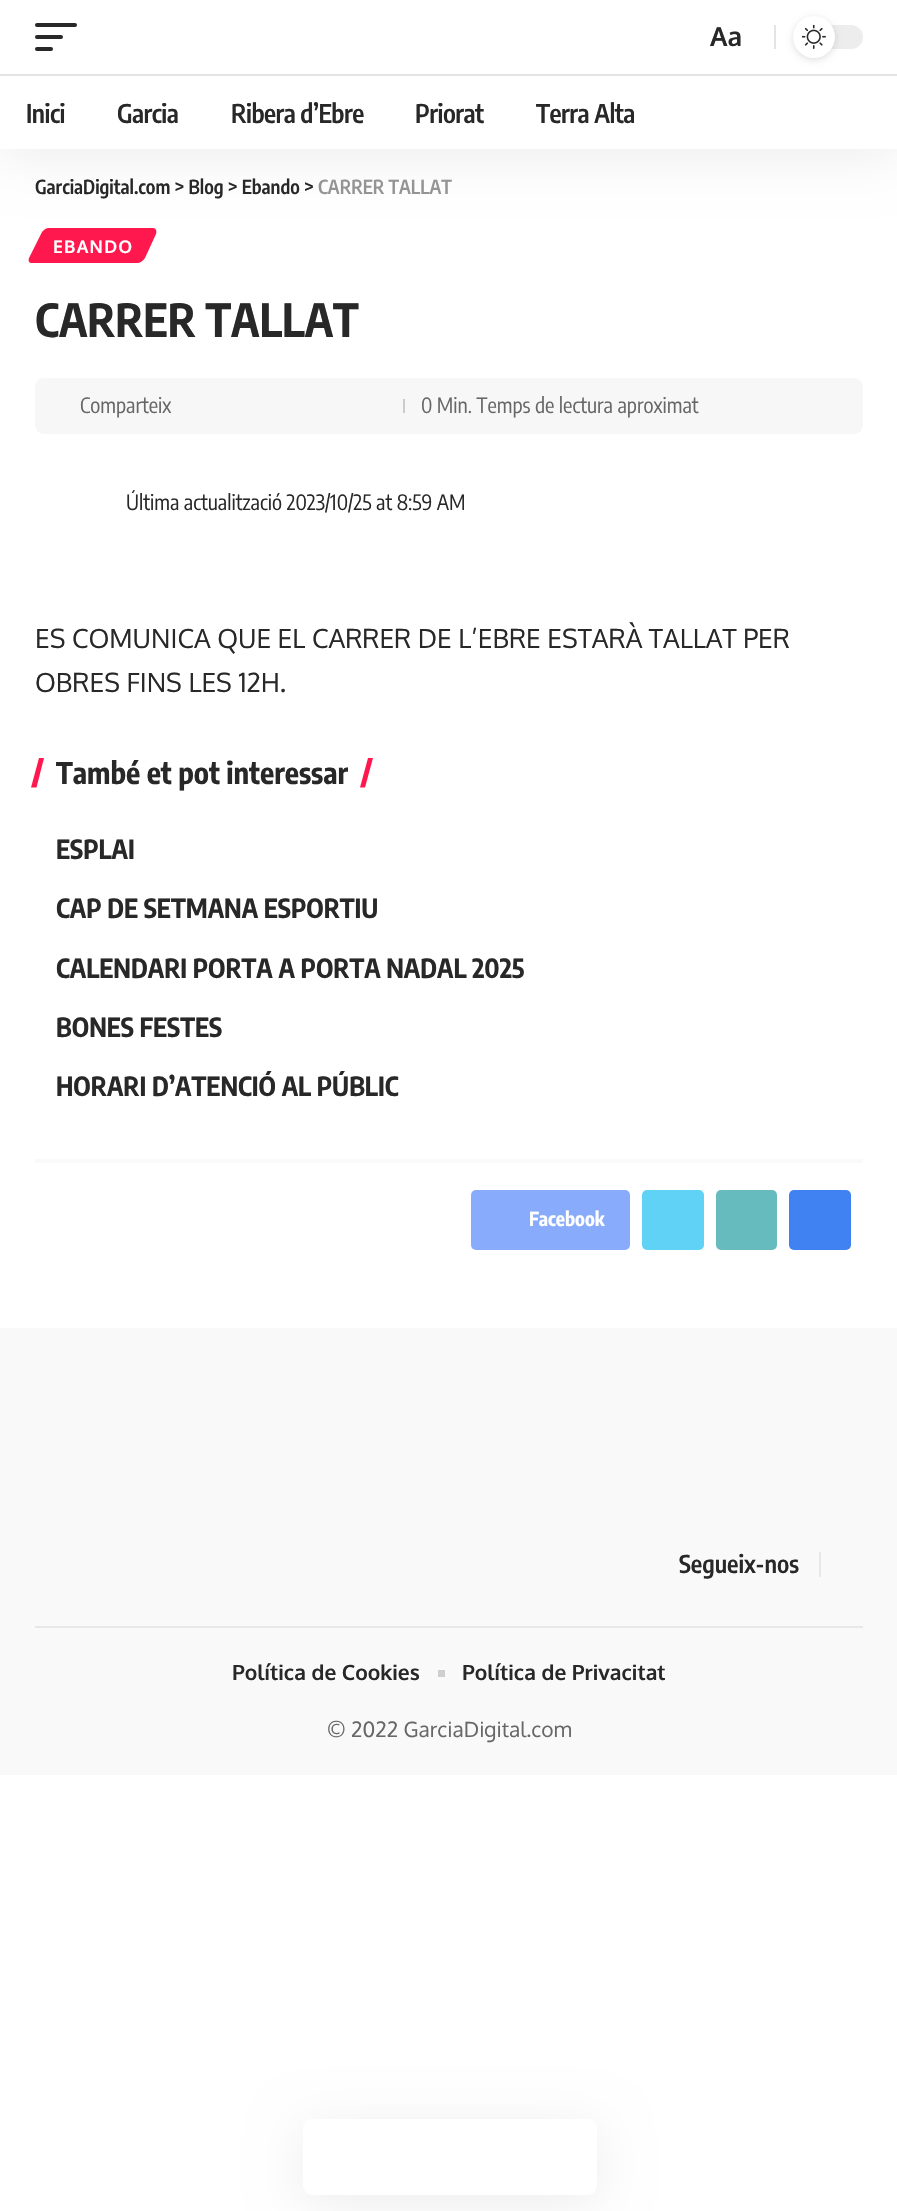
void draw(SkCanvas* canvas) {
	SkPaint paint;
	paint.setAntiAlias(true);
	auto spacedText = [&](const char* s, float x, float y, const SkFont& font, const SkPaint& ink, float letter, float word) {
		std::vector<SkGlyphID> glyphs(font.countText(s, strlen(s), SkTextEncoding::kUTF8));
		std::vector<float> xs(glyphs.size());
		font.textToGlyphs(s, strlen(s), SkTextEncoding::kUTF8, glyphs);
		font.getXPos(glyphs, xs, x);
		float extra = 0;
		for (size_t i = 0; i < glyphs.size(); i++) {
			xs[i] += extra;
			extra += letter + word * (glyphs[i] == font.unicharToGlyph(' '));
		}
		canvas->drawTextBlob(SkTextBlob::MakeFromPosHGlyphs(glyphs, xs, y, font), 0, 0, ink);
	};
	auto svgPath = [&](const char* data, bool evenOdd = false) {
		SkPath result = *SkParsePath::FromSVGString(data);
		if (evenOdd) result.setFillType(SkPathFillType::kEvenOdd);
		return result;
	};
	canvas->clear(0xffffffff);
	paint.setColor(0xffff184e);
	canvas->drawPath(svgPath("M48 228H153C156 228 157 231 156 234L145 258C143 261 140 263 137 263H32C29 263 28 261 29 258L41 234C42 231 46 228 48 228Z"), paint);
	paint.setColor(0x12000000);
	paint.setMaskFilter(SkMaskFilter::MakeBlur(kNormal_SkBlurStyle, 26));
	canvas->drawRect(SkRect::MakeXYWH(0, 7, 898, 149), paint);
	paint.setMaskFilter(nullptr);
	paint.setColor(0xffffffff);
	canvas->drawRect(SkRect::MakeXYWH(0, 0, 897, 149), paint);
	paint.setColor(0xff282828);
	canvas->drawRoundRect(SkRect::MakeXYWH(35, 23, 42, 4), 2, 2, paint);
	canvas->drawRoundRect(SkRect::MakeXYWH(35, 35, 28, 4), 2, 2, paint);
	canvas->drawRoundRect(SkRect::MakeXYWH(35, 47, 18, 4), 2, 2, paint);
	SkFont f1(fontMgr->matchFamilyStyle("Oxygen", SkFontStyle::Bold()), 26.25);
	f1.setSubpixel(true);
	canvas->drawString("Aa", 710, 46, f1, paint);
	paint.setColor(0xffe4e4e4);
	canvas->drawRect(SkRect::MakeXYWH(774, 25, 2, 24), paint);
	paint.setColor(0xffededed);
	canvas->drawRoundRect(SkRect::MakeXYWH(793, 25, 70, 24), 12, 12, paint);
	paint.setColor(0x1f000000);
	paint.setMaskFilter(SkMaskFilter::MakeBlur(kNormal_SkBlurStyle, 3.5));
	canvas->drawRoundRect(SkRect::MakeXYWH(793, 18, 42, 42), 21, 21, paint);
	paint.setMaskFilter(nullptr);
	paint.setColor(0xffffffff);
	canvas->drawCircle(814, 37, 21, paint);
	canvas->drawImageRect(SkImages::DeferredFromEncodedData(SkData::MakeFromFileName("img1.png")), SkRect::MakeXYWH(802, 25, 24, 24), SkSamplingOptions());
	paint.setColor(0xffe4e4e4);
	canvas->drawRect(SkRect::MakeXYWH(0, 74, 897, 2), paint);
	SkFont f2(fontMgr->matchFamilyStyle("Encode Sans Condensed", SkFontStyle(600, SkFontStyle::kNormal_Width, SkFontStyle::kUpright_Slant)), 25.75);
	f2.setSubpixel(true);
	paint.setColor(0xff282828);
	spacedText("Inici", 26, 123, f2, paint, -0.5, 0);
	spacedText("Garcia", 117, 123, f2, paint, -0.5, 0);
	spacedText("Ribera d’Ebre", 231, 123, f2, paint, -0.5, 0);
	spacedText("Priorat", 415, 123, f2, paint, -0.5, 0);
	spacedText("Terra Alta", 536, 123, f2, paint, -0.5, 0);
	SkFont f3(fontMgr->matchFamilyStyle("Encode Sans Condensed", SkFontStyle(600, SkFontStyle::kNormal_Width, SkFontStyle::kUpright_Slant)), 19.25);
	f3.setSubpixel(true);
	canvas->drawString("GarciaDigital.com > Blog > Ebando >", 35, 194, f3, paint);
	paint.setColor(0xff949494);
	canvas->drawString("CARRER TALLAT", 318, 194, f3, paint);
	SkFont f4(fontMgr->matchFamilyStyle("Oxygen", SkFontStyle::Bold()), 17.5);
	f4.setSubpixel(true);
	paint.setColor(0xffffffff);
	spacedText("EBANDO", 53, 253, f4, paint, 1.25, 0);
	SkFont f5(fontMgr->matchFamilyStyle("Encode Sans Condensed", SkFontStyle::Bold()), 45.5);
	f5.setSubpixel(true);
	paint.setColor(0xff282828);
	canvas->drawString("CARRER TALLAT", 35, 337, f5, paint);
	paint.setColor(0xfff7f7f7);
	canvas->drawRoundRect(SkRect::MakeXYWH(35, 378, 828, 56), 9, 9, paint);
	SkFont f6(fontMgr->matchFamilyStyle("Encode Sans Condensed", SkFontStyle::Normal()), 21);
	f6.setSubpixel(true);
	paint.setColor(0xff676767);
	canvas->drawString("Comparteix", 80, 413, f6, paint);
	paint.setColor(0xffcccccc);
	canvas->drawRect(SkRect::MakeXYWH(403, 399, 2, 14), paint);
	paint.setColor(0xff676767);
	canvas->drawString("0 Min. Temps de lectura aproximat", 421, 413, f6, paint);
	paint.setColor(0xff282828);
	canvas->drawString("Última actualització 2023/10/25 at 8:59 AM", 126, 510, f6, paint);
	SkFont f7(fontMgr->matchFamilyStyle("Oxygen", SkFontStyle::Normal()), 26.25);
	f7.setSubpixel(true);
	canvas->drawString("ES COMUNICA QUE EL CARRER DE L’EBRE ESTARÀ TALLAT PER", 35, 648, f7, paint);
	canvas->drawString("OBRES FINS LES 12H.", 35, 692, f7, paint);
	paint.setColor(0xffff184e);
	canvas->drawPath(svgPath("M368 758H373L365 787.5H360Z"), paint);
	canvas->drawPath(svgPath("M39 758H44L36.5 787.5H31Z"), paint);
	SkFont f8(fontMgr->matchFamilyStyle("Encode Sans Condensed", SkFontStyle::Bold()), 29.75);
	f8.setSubpixel(true);
	paint.setColor(0xff282828);
	canvas->drawString("També et pot interessar", 56, 784, f8, paint);
	SkFont f9(fontMgr->matchFamilyStyle("Encode Sans Condensed", SkFontStyle::Bold()), 26.25);
	f9.setSubpixel(true);
	canvas->drawString("ESPLAI", 56, 859, f9, paint);
	canvas->drawString("CAP DE SETMANA ESPORTIU", 56, 918, f9, paint);
	canvas->drawString("CALENDARI PORTA A PORTA NADAL 2025", 56, 978, f9, paint);
	canvas->drawString("BONES FESTES", 56, 1037, f9, paint);
	canvas->drawString("HORARI D’ATENCIÓ AL PÚBLIC", 56, 1096, f9, paint);
	paint.setColor(0x12000000);
	paint.setMaskFilter(SkMaskFilter::MakeBlur(kNormal_SkBlurStyle, 26));
	canvas->drawRoundRect(SkRect::MakeXYWH(303, 2128, 294, 75), 9, 9, paint);
	paint.setMaskFilter(nullptr);
	paint.setColor(0xffffffff);
	canvas->drawRoundRect(SkRect::MakeXYWH(303, 2119, 294, 76), 9, 9, paint);
	paint.setColor(0xfffafafa);
	canvas->drawRect(SkRect::MakeXYWH(35, 1159, 828, 4), paint);
	paint.setColor(0xff89abfc);
	canvas->drawRoundRect(SkRect::MakeXYWH(471, 1190, 159, 60), 5, 5, paint);
	SkFont f10(fontMgr->matchFamilyStyle("Encode Sans Condensed", SkFontStyle::Bold()), 19.25);
	f10.setSubpixel(true);
	paint.setColor(0xffffffff);
	canvas->drawString("Facebook", 529, 1226, f10, paint);
	paint.setColor(0xff60d2f5);
	canvas->drawRoundRect(SkRect::MakeXYWH(642, 1190, 62, 60), 5, 5, paint);
	paint.setColor(0xff66bbbf);
	canvas->drawRoundRect(SkRect::MakeXYWH(716, 1190, 61, 60), 5, 5, paint);
	paint.setColor(0xff4082f1);
	canvas->drawRoundRect(SkRect::MakeXYWH(789, 1190, 62, 60), 5, 5, paint);
	paint.setColor(0xfff9f9f9);
	canvas->drawRect(SkRect::MakeXYWH(0, 1328, 897, 447), paint);
	paint.setColor(0xffe8e8e8);
	canvas->drawRect(SkRect::MakeXYWH(819, 1552, 2, 25), paint);
	SkFont f11(fontMgr->matchFamilyStyle("Encode Sans Condensed", SkFontStyle(600, SkFontStyle::kNormal_Width, SkFontStyle::kUpright_Slant)), 24.5);
	f11.setSubpixel(true);
	paint.setColor(0xff282828);
	canvas->drawString("Segueix-nos", 679, 1573, f11, paint);
	paint.setColor(0xffe8e8e8);
	canvas->drawRect(SkRect::MakeXYWH(35, 1626, 828, 2), paint);
	SkFont f12(fontMgr->matchFamilyStyle("Oxygen", SkFontStyle::Bold()), 21);
	f12.setSubpixel(true);
	paint.setColor(0xff282828);
	canvas->drawString("Política de Cookies", 232, 1680, f12, paint);
	paint.setColor(0xffcfcfcf);
	canvas->drawRect(SkRect::MakeXYWH(438, 1670, 7, 7), paint);
	paint.setColor(0xff282828);
	canvas->drawString("Política de Privacitat", 462, 1680, f12, paint);
	SkFont f13(fontMgr->matchFamilyStyle("Oxygen", SkFontStyle::Normal()), 21);
	f13.setSubpixel(true);
	paint.setColor(0xff676767);
	canvas->drawString("© 2022 GarciaDigital.com", 327, 1737, f13, paint);
}
